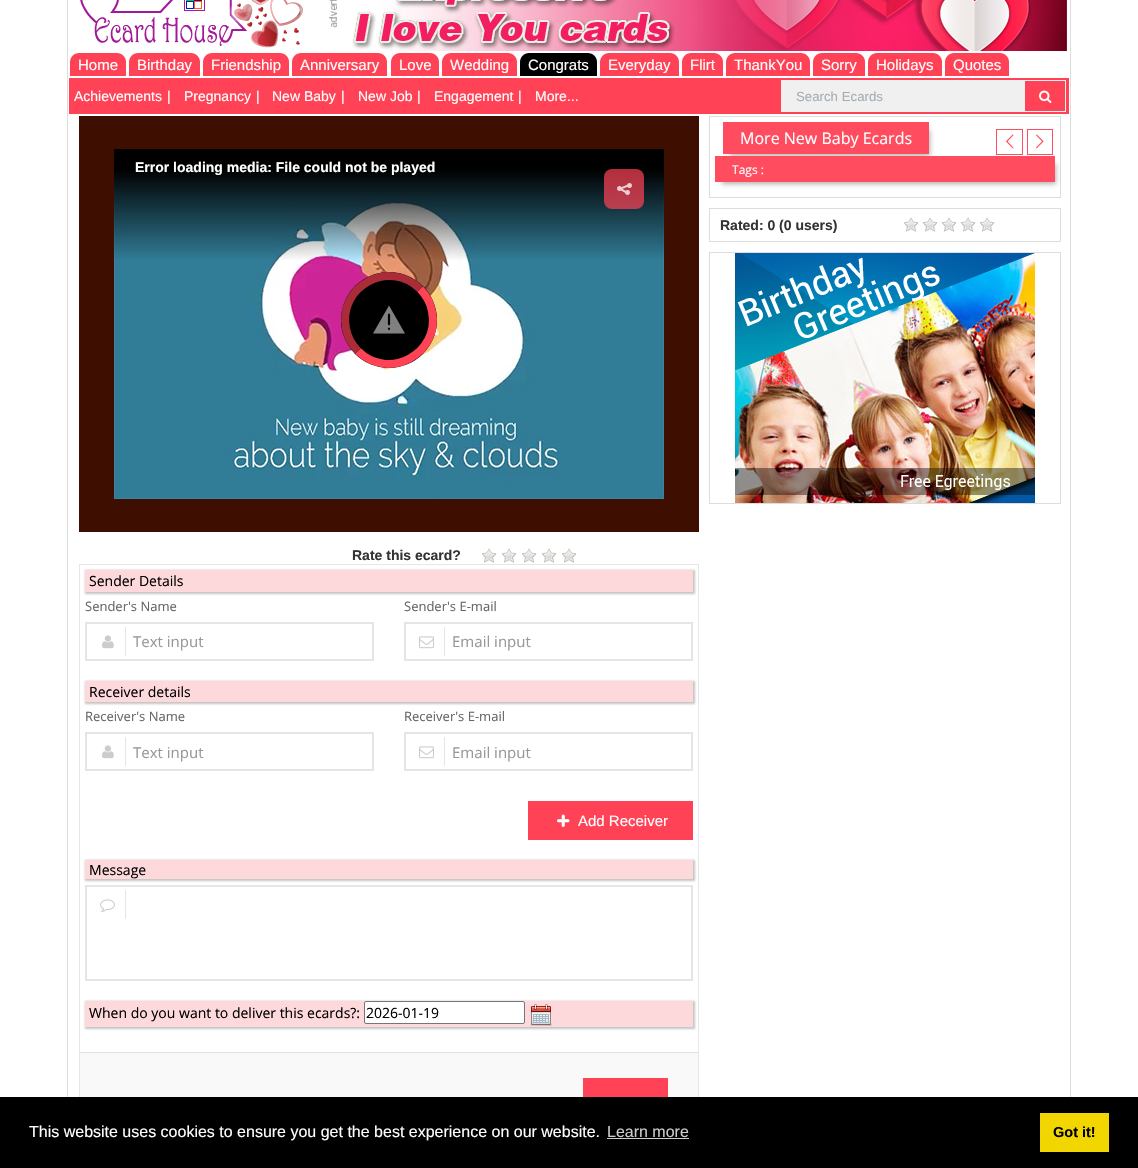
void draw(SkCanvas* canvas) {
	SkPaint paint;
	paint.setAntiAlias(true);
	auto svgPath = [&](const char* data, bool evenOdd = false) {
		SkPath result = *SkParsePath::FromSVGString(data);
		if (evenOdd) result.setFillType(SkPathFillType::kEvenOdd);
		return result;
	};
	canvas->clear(0xffffffff);
	paint.setStroke(true);
	paint.setStrokeWidth(1);
	paint.setColor(0xffdddddd);
	canvas->drawRect(SkRect::MakeXYWH(67.5, -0.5, 1003, 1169), paint);
	canvas->drawImageRect(SkImages::DeferredFromEncodedData(SkData::MakeFromFileName("img1.png")), SkRect::MakeXYWH(80, 0, 223, 48), SkSamplingOptions());
	canvas->drawImageRect(SkImages::DeferredFromEncodedData(SkData::MakeFromFileName("img2.png")), SkRect::MakeXYWH(329, 0, 8, 28), SkSamplingOptions());
	canvas->drawImageRect(SkImages::DeferredFromEncodedData(SkData::MakeFromFileName("img3.png")), SkRect::MakeXYWH(351, 0, 716, 51), SkSamplingOptions());
	paint.setStroke(false);
	paint.setColor(0xffff4256);
	canvas->drawPath(svgPath("M79 53H117C122 53 126 57 126 62V76H70V62C70 57 74 53 79 53Z"), paint);
	SkFont f1(fontMgr->matchFamilyStyle("Liberation Sans", SkFontStyle::Normal()), 15);
	f1.setSubpixel(true);
	paint.setColor(0xffffffff);
	canvas->drawString("Home", 78, 70, f1, paint);
	paint.setColor(0xffff4256);
	canvas->drawPath(svgPath("M138 53H191C196 53 200 57 200 62V76H129V62C129 57 133 53 138 53Z"), paint);
	paint.setColor(0xffffffff);
	canvas->drawString("Birthday", 137, 70, f1, paint);
	paint.setColor(0xffff4256);
	canvas->drawPath(svgPath("M212 53H280C285 53 289 57 289 62V76H203V62C203 57 207 53 212 53Z"), paint);
	paint.setColor(0xffffffff);
	canvas->drawString("Friendship", 211, 70, f1, paint);
	paint.setColor(0xffff4256);
	canvas->drawPath(svgPath("M301 53H378C383 53 387 57 387 62V76H292V62C292 57 296 53 301 53Z"), paint);
	paint.setColor(0xffffffff);
	canvas->drawString("Anniversary", 300, 70, f1, paint);
	paint.setColor(0xffff4256);
	canvas->drawPath(svgPath("M400 53H430C435 53 439 57 439 62V76H391V62C391 57 395 53 400 53Z"), paint);
	paint.setColor(0xffffffff);
	canvas->drawString("Love", 399, 70, f1, paint);
	paint.setColor(0xffff4256);
	canvas->drawPath(svgPath("M451 53H508C513 53 517 57 517 62V76H442V62C442 57 446 53 451 53Z"), paint);
	paint.setColor(0xffffffff);
	canvas->drawString("Wedding", 450, 70, f1, paint);
	paint.setColor(0xff000000);
	canvas->drawPath(svgPath("M529 53H588C593 53 597 57 597 62V76H520V62C520 57 524 53 529 53Z"), paint);
	paint.setColor(0xffffffff);
	canvas->drawString("Congrats", 528, 70, f1, paint);
	paint.setColor(0xffff4256);
	canvas->drawPath(svgPath("M609 53H670C675 53 679 57 679 62V76H600V62C600 57 604 53 609 53Z"), paint);
	paint.setColor(0xffffffff);
	canvas->drawString("Everyday", 608, 70, f1, paint);
	paint.setColor(0xffff4256);
	canvas->drawPath(svgPath("M691 53H714C719 53 723 57 723 62V76H682V62C682 57 686 53 691 53Z"), paint);
	paint.setColor(0xffffffff);
	canvas->drawString("Flirt", 690, 70, f1, paint);
	paint.setColor(0xffff4256);
	canvas->drawPath(svgPath("M735 53H801C806 53 810 57 810 62V76H726V62C726 57 730 53 735 53Z"), paint);
	paint.setColor(0xffffffff);
	canvas->drawString("ThankYou", 734, 70, f1, paint);
	paint.setColor(0xffff4256);
	canvas->drawPath(svgPath("M822 53H856C861 53 865 57 865 62V76H813V62C813 57 817 53 822 53Z"), paint);
	paint.setColor(0xffffffff);
	canvas->drawString("Sorry", 821, 70, f1, paint);
	paint.setColor(0xffff4256);
	canvas->drawPath(svgPath("M877 53H933C938 53 942 57 942 62V76H868V62C868 57 872 53 877 53Z"), paint);
	paint.setColor(0xffffffff);
	canvas->drawString("Holidays", 876, 70, f1, paint);
	paint.setColor(0xffff4256);
	canvas->drawPath(svgPath("M954 53H1000C1005 53 1009 57 1009 62V76H945V62C945 57 949 53 954 53Z"), paint);
	paint.setColor(0xffffffff);
	canvas->drawString("Quotes", 953, 70, f1, paint);
	paint.setColor(0xffff4256);
	canvas->drawRect(SkRect::MakeXYWH(69, 78, 1000, 36), paint);
	SkFont f2(fontMgr->matchFamilyStyle("Liberation Sans", SkFontStyle::Normal()), 14);
	f2.setSubpixel(true);
	paint.setColor(0xffffffff);
	canvas->drawString("Achievements", 74, 101, f2, paint);
	canvas->drawString("|", 167, 101, f2, paint);
	canvas->drawString("Pregnancy", 184, 101, f2, paint);
	canvas->drawString("|", 256, 101, f2, paint);
	canvas->drawString("New Baby", 272, 101, f2, paint);
	canvas->drawString("|", 341, 101, f2, paint);
	canvas->drawString("New Job", 358, 101, f2, paint);
	canvas->drawString("|", 417, 101, f2, paint);
	canvas->drawString("Engagement", 434, 101, f2, paint);
	canvas->drawString("|", 518, 101, f2, paint);
	canvas->drawString("More...", 535, 101, f2, paint);
	paint.setColor(0xfff0f0f0);
	canvas->drawRect(SkRect::MakeXYWH(781, 80, 285, 32), paint);
	SkFont f3(fontMgr->matchFamilyStyle("Liberation Sans", SkFontStyle::Normal()), 13.25);
	f3.setSubpixel(true);
	paint.setColor(0xffa5adb2);
	canvas->drawString("Search Ecards", 796, 101, f3, paint);
	paint.setColor(0xffff4256);
	canvas->drawRect(SkRect::MakeXYWH(1025, 81, 40, 30), paint);
	canvas->drawImageRect(SkImages::DeferredFromEncodedData(SkData::MakeFromFileName("img4.png")), SkRect::MakeXYWH(1039, 90, 13, 13), SkSamplingOptions());
	paint.setStroke(true);
	paint.setColor(0xffdddddd);
	canvas->drawRect(SkRect::MakeXYWH(709.5, 116.5, 351, 81), paint);
	paint.setStroke(false);
	paint.setColor(0x4d000000);
	paint.setMaskFilter(SkMaskFilter::MakeBlur(kNormal_SkBlurStyle, 2.5));
	canvas->drawRect(SkRect::MakeXYWH(730, 130, 200, 26), paint);
	paint.setMaskFilter(nullptr);
	paint.setColor(0xffff4c5f);
	canvas->drawRect(SkRect::MakeXYWH(723, 122, 206, 32), paint);
	SkFont f4(fontMgr->matchFamilyStyle("Open Sans", SkFontStyle::Normal()), 16);
	f4.setSubpixel(true);
	paint.setColor(0xffffffff);
	canvas->drawString("More New Baby Ecards", 740, 144, f4, paint);
	paint.setStroke(true);
	paint.setColor(0xffff4c5f);
	canvas->drawRect(SkRect::MakeXYWH(996.5, 129.5, 26, 25), paint);
	canvas->drawImageRect(SkImages::DeferredFromEncodedData(SkData::MakeFromFileName("img5.png")), SkRect::MakeXYWH(1006, 134, 8, 15), SkSamplingOptions());
	canvas->drawRect(SkRect::MakeXYWH(1027.5, 129.5, 25, 25), paint);
	canvas->drawImageRect(SkImages::DeferredFromEncodedData(SkData::MakeFromFileName("img6.png")), SkRect::MakeXYWH(1036, 134, 8, 15), SkSamplingOptions());
	paint.setStroke(false);
	paint.setColor(0x4d000000);
	paint.setMaskFilter(SkMaskFilter::MakeBlur(kNormal_SkBlurStyle, 2.5));
	canvas->drawRect(SkRect::MakeXYWH(722, 164, 334, 20), paint);
	paint.setMaskFilter(nullptr);
	paint.setColor(0xffff4c5f);
	canvas->drawRect(SkRect::MakeXYWH(715, 156, 340, 26), paint);
	SkFont f5(fontMgr->matchFamilyStyle("Open Sans", SkFontStyle::Normal()), 12);
	f5.setSubpixel(true);
	paint.setColor(0xffffffff);
	canvas->drawString("Tags :", 732, 174, f5, paint);
	paint.setColor(0xff3e0e00);
	canvas->drawRect(SkRect::MakeXYWH(79, 116, 620, 416), paint);
	canvas->drawImageRect(SkImages::DeferredFromEncodedData(SkData::MakeFromFileName("img7.png")), SkRect::MakeXYWH(114, 149, 550, 350), SkSamplingOptions());
	SkFont f6(fontMgr->matchFamilyStyle("Liberation Sans", SkFontStyle::Bold()), 14);
	f6.setSubpixel(true);
	paint.setColor(0xffffffff);
	canvas->drawString("Error loading media: File could not be played", 135, 172, f6, paint);
	paint.setColor(0xb3ff4256);
	canvas->drawRoundRect(SkRect::MakeXYWH(604, 169, 40, 40), 8, 8, paint);
	canvas->drawImageRect(SkImages::DeferredFromEncodedData(SkData::MakeFromFileName("img8.png")), SkRect::MakeXYWH(617, 183, 15, 12), SkSamplingOptions());
	paint.setColor(0xff000000);
	canvas->drawCircle(389, 320, 48, paint);
	paint.setStroke(true);
	paint.setStrokeWidth(8);
	paint.setColor(0xffff4256);
	canvas->drawPath(svgPath("M420 289C426 295 430.5 303 432 311.5C440.5 353.5 388.5 381.5 358 351"), paint);
	paint.setColor(0xffaa2c39);
	canvas->drawPath(svgPath("M358 351C352 345 347.5 337 346 328.5C337.5 286.5 389.5 258.5 420 289"), paint);
	canvas->drawImageRect(SkImages::DeferredFromEncodedData(SkData::MakeFromFileName("img9.png")), SkRect::MakeXYWH(373, 305, 32, 29), SkSamplingOptions());
	paint.setStroke(false);
	paint.setColor(0xff333333);
	canvas->drawString("Rate this ecard?", 352, 560, f6, paint);
	canvas->drawImageRect(SkImages::DeferredFromEncodedData(SkData::MakeFromFileName("img10.png")), SkRect::MakeXYWH(481, 548, 16, 15), SkSamplingOptions());
	canvas->drawImageRect(SkImages::DeferredFromEncodedData(SkData::MakeFromFileName("img10.png")), SkRect::MakeXYWH(501, 548, 16, 15), SkSamplingOptions());
	canvas->drawImageRect(SkImages::DeferredFromEncodedData(SkData::MakeFromFileName("img10.png")), SkRect::MakeXYWH(521, 548, 16, 15), SkSamplingOptions());
	canvas->drawImageRect(SkImages::DeferredFromEncodedData(SkData::MakeFromFileName("img10.png")), SkRect::MakeXYWH(541, 548, 16, 15), SkSamplingOptions());
	canvas->drawImageRect(SkImages::DeferredFromEncodedData(SkData::MakeFromFileName("img10.png")), SkRect::MakeXYWH(561, 548, 16, 15), SkSamplingOptions());
	paint.setStroke(true);
	paint.setStrokeWidth(1);
	paint.setColor(0xffe6e6e6);
	canvas->drawRect(SkRect::MakeXYWH(79.5, 564.5, 619, 578), paint);
	paint.setStroke(false);
	paint.setColor(0x59595659);
	paint.setMaskFilter(SkMaskFilter::MakeBlur(kNormal_SkBlurStyle, 1));
	canvas->drawRect(SkRect::MakeXYWH(85, 570, 610, 24), paint);
	paint.setMaskFilter(nullptr);
	paint.setColor(0xfffed9dc);
	canvas->drawRect(SkRect::MakeXYWH(85, 570, 608, 22), paint);
	SkFont f7(fontMgr->matchFamilyStyle("Open Sans", SkFontStyle::Normal()), 14);
	f7.setSubpixel(true);
	paint.setColor(0xff000000);
	canvas->drawString("Sender Details", 89, 586, f7, paint);
	SkFont f8(fontMgr->matchFamilyStyle("Open Sans", SkFontStyle::Normal()), 13);
	f8.setSubpixel(true);
	paint.setColor(0xff666666);
	canvas->drawString("Sender's Name", 85, 611, f8, paint);
	paint.setStroke(true);
	paint.setStrokeWidth(2);
	paint.setColor(0xffe5e5e5);
	canvas->drawRect(SkRect::MakeXYWH(86, 623, 287, 37), paint);
	paint.setStroke(false);
	canvas->drawRect(SkRect::MakeXYWH(125, 627, 1, 29), paint);
	canvas->drawImageRect(SkImages::DeferredFromEncodedData(SkData::MakeFromFileName("img11.png")), SkRect::MakeXYWH(102, 635, 12, 14), SkSamplingOptions());
	SkFont f9(fontMgr->matchFamilyStyle("Open Sans", SkFontStyle::Normal()), 15);
	f9.setSubpixel(true);
	paint.setColor(0xff989898);
	canvas->drawString("Text input", 133, 647, f9, paint);
	paint.setColor(0xff666666);
	canvas->drawString("Sender's E-mail", 404, 611, f8, paint);
	paint.setStroke(true);
	paint.setColor(0xffe5e5e5);
	canvas->drawRect(SkRect::MakeXYWH(405, 623, 287, 37), paint);
	paint.setStroke(false);
	canvas->drawRect(SkRect::MakeXYWH(444, 627, 1, 29), paint);
	canvas->drawImageRect(SkImages::DeferredFromEncodedData(SkData::MakeFromFileName("img12.png")), SkRect::MakeXYWH(419, 636, 15, 13), SkSamplingOptions());
	paint.setColor(0xff989898);
	canvas->drawString("Email input", 452, 647, f9, paint);
	paint.setColor(0x59595659);
	paint.setMaskFilter(SkMaskFilter::MakeBlur(kNormal_SkBlurStyle, 1));
	canvas->drawRect(SkRect::MakeXYWH(85, 681, 610, 23), paint);
	paint.setMaskFilter(nullptr);
	paint.setColor(0xfffed9dc);
	canvas->drawRect(SkRect::MakeXYWH(85, 681, 608, 21), paint);
	paint.setColor(0xff000000);
	canvas->drawString("Receiver details", 89, 697, f7, paint);
	paint.setColor(0xff666666);
	canvas->drawString("Receiver's Name", 85, 721, f8, paint);
	paint.setStroke(true);
	paint.setColor(0xffe5e5e5);
	canvas->drawRect(SkRect::MakeXYWH(86, 733, 287, 37), paint);
	paint.setStroke(false);
	canvas->drawRect(SkRect::MakeXYWH(125, 737, 1, 29), paint);
	canvas->drawImageRect(SkImages::DeferredFromEncodedData(SkData::MakeFromFileName("img11.png")), SkRect::MakeXYWH(102, 745, 12, 14), SkSamplingOptions());
	paint.setColor(0xff989898);
	canvas->drawString("Text input", 133, 758, f9, paint);
	paint.setColor(0xff666666);
	canvas->drawString("Receiver's E-mail", 404, 721, f8, paint);
	paint.setStroke(true);
	paint.setColor(0xffe5e5e5);
	canvas->drawRect(SkRect::MakeXYWH(405, 733, 287, 37), paint);
	paint.setStroke(false);
	canvas->drawRect(SkRect::MakeXYWH(444, 737, 1, 29), paint);
	canvas->drawImageRect(SkImages::DeferredFromEncodedData(SkData::MakeFromFileName("img12.png")), SkRect::MakeXYWH(419, 746, 15, 13), SkSamplingOptions());
	paint.setColor(0xff989898);
	canvas->drawString("Email input", 452, 758, f9, paint);
	paint.setColor(0xffff4256);
	canvas->drawRect(SkRect::MakeXYWH(528, 801, 165, 39), paint);
	canvas->drawImageRect(SkImages::DeferredFromEncodedData(SkData::MakeFromFileName("img13.png")), SkRect::MakeXYWH(557, 814, 13, 13), SkSamplingOptions());
	paint.setColor(0xffffffff);
	canvas->drawString("Add Receiver", 578, 826, f1, paint);
	paint.setColor(0x59595659);
	paint.setMaskFilter(SkMaskFilter::MakeBlur(kNormal_SkBlurStyle, 1));
	canvas->drawRect(SkRect::MakeXYWH(85, 860, 610, 21), paint);
	paint.setMaskFilter(nullptr);
	paint.setColor(0xfffed9dc);
	canvas->drawRect(SkRect::MakeXYWH(85, 860, 608, 19), paint);
	paint.setColor(0xff000000);
	canvas->drawString("Message", 89, 875, f7, paint);
	paint.setStroke(true);
	paint.setColor(0xffe5e5e5);
	canvas->drawRect(SkRect::MakeXYWH(86, 886, 606, 94), paint);
	paint.setStroke(false);
	canvas->drawRect(SkRect::MakeXYWH(125, 890, 1, 29), paint);
	canvas->drawImageRect(SkImages::DeferredFromEncodedData(SkData::MakeFromFileName("img14.png")), SkRect::MakeXYWH(100, 899, 15, 14), SkSamplingOptions());
	paint.setColor(0x59595659);
	paint.setMaskFilter(SkMaskFilter::MakeBlur(kNormal_SkBlurStyle, 1));
	canvas->drawRect(SkRect::MakeXYWH(85, 1001, 610, 28), paint);
	paint.setMaskFilter(nullptr);
	paint.setColor(0xfffed9dc);
	canvas->drawRect(SkRect::MakeXYWH(85, 1001, 608, 26), paint);
	paint.setColor(0xff000000);
	canvas->drawString("When do you want to deliver this ecards?:", 89, 1018, f7, paint);
	paint.setColor(0xffffffff);
	canvas->drawRoundRect(SkRect::MakeXYWH(364.5, 1001.5, 160, 22), 1.5, 1.5, paint);
	paint.setStroke(true);
	paint.setStrokeWidth(1);
	paint.setColor(0xff767676);
	canvas->drawRoundRect(SkRect::MakeXYWH(364.5, 1001.5, 160, 22), 1.5, 1.5, paint);
	paint.setStroke(false);
	paint.setColor(0xff000000);
	canvas->drawString("2026-01-19", 366, 1018, f7, paint);
	canvas->drawImageRect(SkImages::DeferredFromEncodedData(SkData::MakeFromFileName("img15.png")), SkRect::MakeXYWH(530, 1004, 22, 22), SkSamplingOptions());
	paint.setColor(0xfff9f9f9);
	canvas->drawRect(SkRect::MakeXYWH(80, 1053, 618, 44), paint);
	paint.setColor(0xffe0e0e0);
	canvas->drawRect(SkRect::MakeXYWH(80, 1052, 618, 1), paint);
	paint.setColor(0xffff4256);
	canvas->drawRect(SkRect::MakeXYWH(583, 1078, 85, 19), paint);
	paint.setStroke(true);
	paint.setColor(0xffdddddd);
	canvas->drawRect(SkRect::MakeXYWH(709.5, 208.5, 351, 33), paint);
	paint.setStroke(false);
	paint.setColor(0xff333333);
	canvas->drawString("Rated: 0 (0 users)", 720, 230, f6, paint);
	canvas->drawImageRect(SkImages::DeferredFromEncodedData(SkData::MakeFromFileName("img10.png")), SkRect::MakeXYWH(903, 217, 16, 15), SkSamplingOptions());
	canvas->drawImageRect(SkImages::DeferredFromEncodedData(SkData::MakeFromFileName("img10.png")), SkRect::MakeXYWH(922, 217, 16, 15), SkSamplingOptions());
	canvas->drawImageRect(SkImages::DeferredFromEncodedData(SkData::MakeFromFileName("img10.png")), SkRect::MakeXYWH(941, 217, 16, 15), SkSamplingOptions());
	canvas->drawImageRect(SkImages::DeferredFromEncodedData(SkData::MakeFromFileName("img10.png")), SkRect::MakeXYWH(960, 217, 16, 15), SkSamplingOptions());
	canvas->drawImageRect(SkImages::DeferredFromEncodedData(SkData::MakeFromFileName("img10.png")), SkRect::MakeXYWH(979, 217, 16, 15), SkSamplingOptions());
	paint.setStroke(true);
	paint.setColor(0xffdddddd);
	canvas->drawRect(SkRect::MakeXYWH(709.5, 252.5, 351, 251), paint);
	canvas->drawImageRect(SkImages::DeferredFromEncodedData(SkData::MakeFromFileName("img16.png")), SkRect::MakeXYWH(735, 253, 300, 250), SkSamplingOptions());
	paint.setStroke(false);
	paint.setColor(0xff000000);
	canvas->drawRect(SkRect::MakeXYWH(0, 1097, 1138, 71), paint);
	SkFont f10(fontMgr->matchFamilyStyle("Liberation Sans", SkFontStyle::Normal()), 16);
	f10.setSubpixel(true);
	paint.setColor(0xffffffff);
	canvas->drawString("This website uses cookies to ensure you get the best experience on our website.", 29, 1137, f10, paint);
	paint.setColor(0xffcccccc);
	canvas->drawString("Learn more", 607, 1137, f10, paint);
	canvas->drawRect(SkRect::MakeXYWH(607, 1138, 82, 1), paint);
	paint.setColor(0xfff1d600);
	canvas->drawRect(SkRect::MakeXYWH(1040, 1113, 69, 39), paint);
	SkFont f11(fontMgr->matchFamilyStyle("Liberation Sans", SkFontStyle::Bold()), 14.5);
	f11.setSubpixel(true);
	paint.setColor(0xff000000);
	canvas->drawString("Got it!", 1053, 1137, f11, paint);
}
